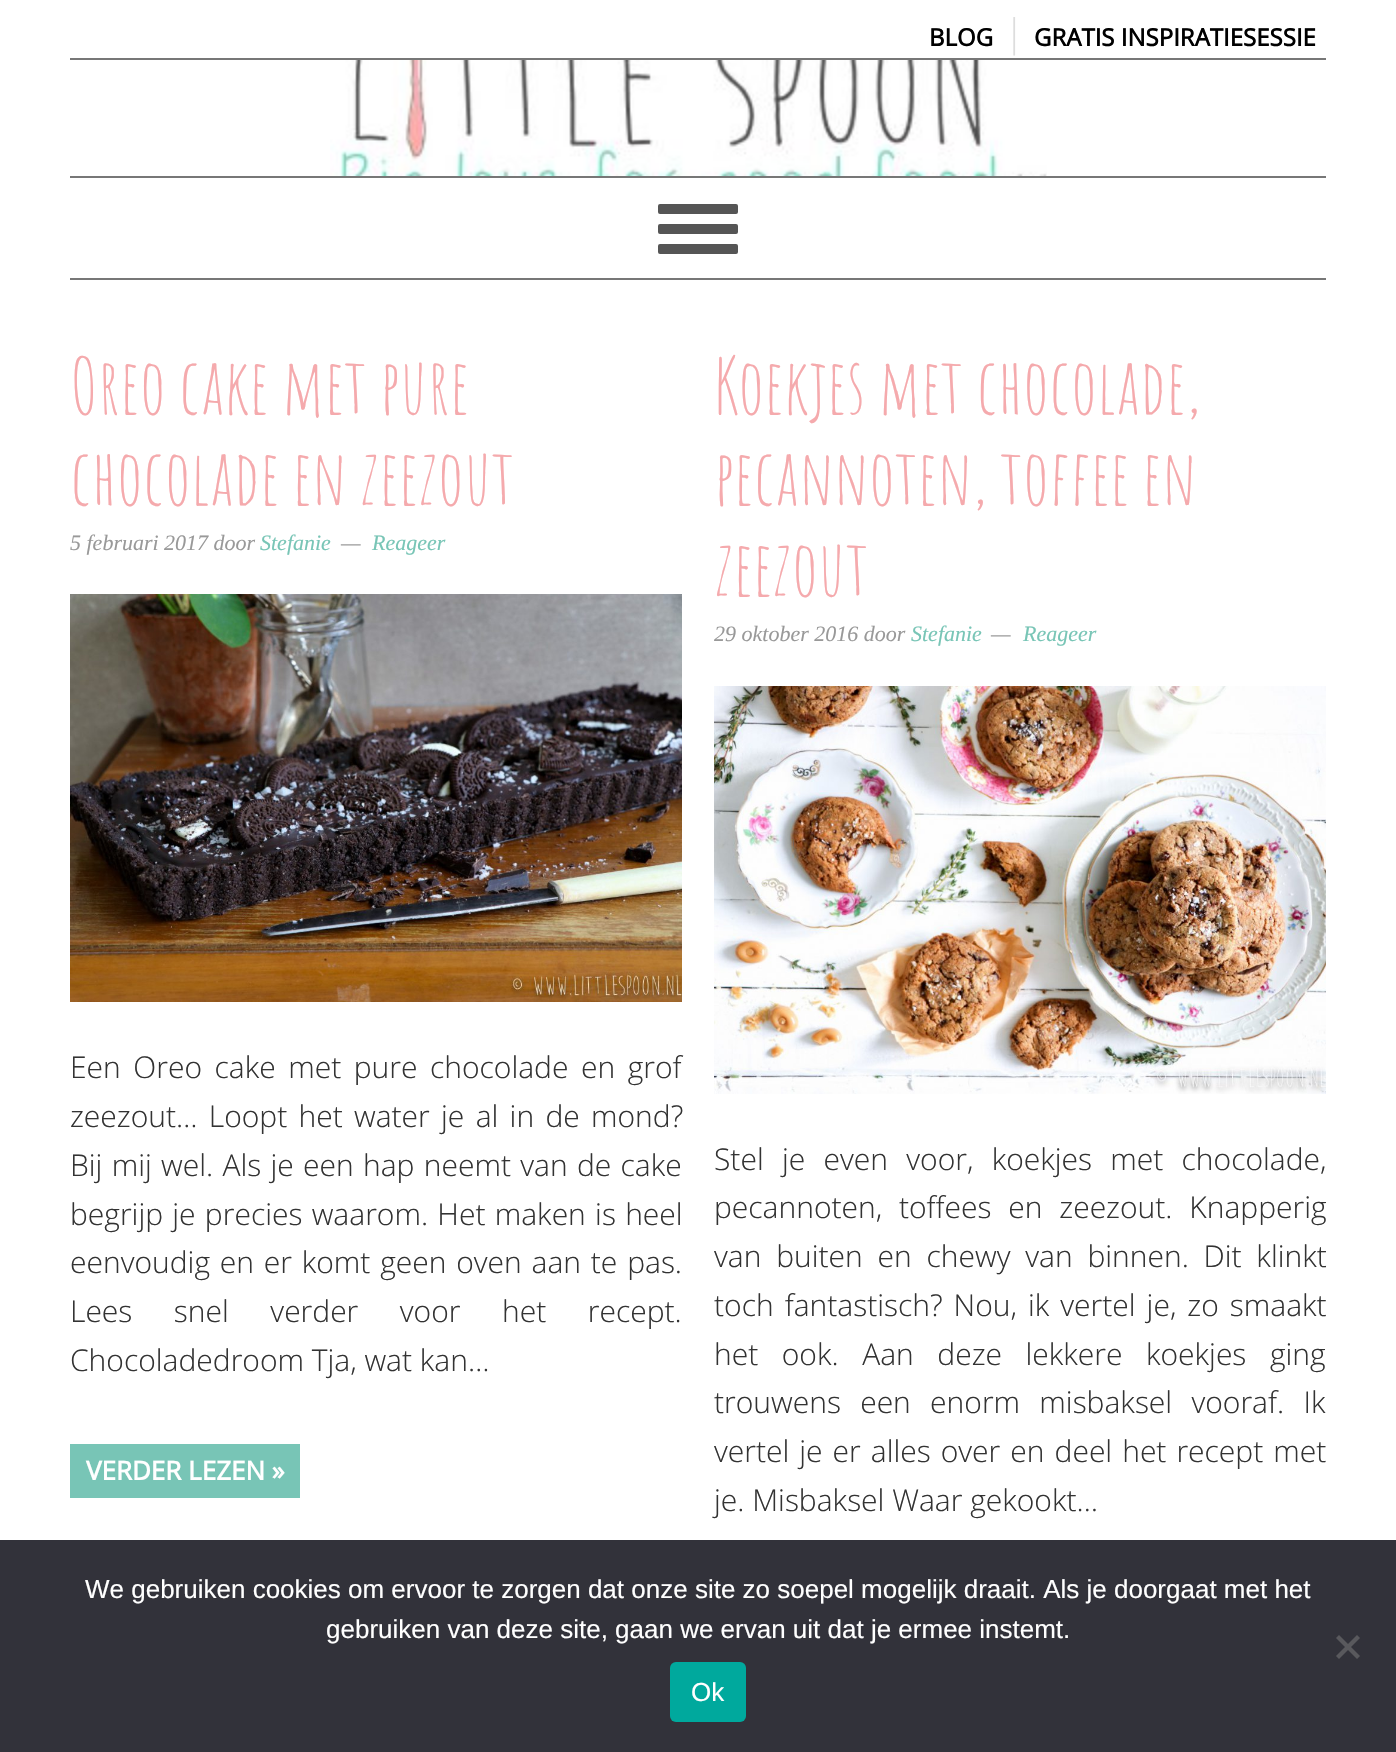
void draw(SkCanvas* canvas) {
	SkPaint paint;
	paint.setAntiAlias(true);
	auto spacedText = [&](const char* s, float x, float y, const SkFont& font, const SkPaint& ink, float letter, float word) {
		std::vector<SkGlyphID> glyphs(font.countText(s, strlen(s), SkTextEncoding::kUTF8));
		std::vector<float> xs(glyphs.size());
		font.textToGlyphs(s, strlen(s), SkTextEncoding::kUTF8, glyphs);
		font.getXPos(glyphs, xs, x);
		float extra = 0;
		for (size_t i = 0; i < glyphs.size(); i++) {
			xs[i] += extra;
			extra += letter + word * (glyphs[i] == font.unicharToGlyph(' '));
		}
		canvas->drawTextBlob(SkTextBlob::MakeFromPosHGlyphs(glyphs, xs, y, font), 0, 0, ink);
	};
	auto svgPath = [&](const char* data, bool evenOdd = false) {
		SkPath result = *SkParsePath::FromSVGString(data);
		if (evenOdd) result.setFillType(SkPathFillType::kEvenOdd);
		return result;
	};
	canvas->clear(0xffffffff);
	paint.setColor(0xff777777);
	canvas->drawRect(SkRect::MakeXYWH(70, 58, 1256, 2), paint);
	SkFont f1(fontMgr->matchFamilyStyle("Open Sans", SkFontStyle::Bold()), 24);
	f1.setSubpixel(true);
	paint.setColor(0xff000000);
	canvas->drawString("BLOG", 929, 46, f1, paint);
	SkFont f2(fontMgr->matchFamilyStyle("Open Sans", SkFontStyle(300, SkFontStyle::kNormal_Width, SkFontStyle::kUpright_Slant)), 38);
	f2.setSubpixel(true);
	paint.setColor(0xffdddddd);
	canvas->drawString("|", 1004, 46, f2, paint);
	paint.setColor(0xff000000);
	canvas->drawString("GRATIS INSPIRATIESESSIE", 1034, 46, f1, paint);
	canvas->drawImageRect(SkImages::DeferredFromEncodedData(SkData::MakeFromFileName("img1.png")), SkRect::MakeXYWH(330, 60, 717, 116), SkSamplingOptions());
	paint.setColor(0xff777777);
	canvas->drawRect(SkRect::MakeXYWH(70, 176, 1256, 2), paint);
	canvas->drawRect(SkRect::MakeXYWH(70, 278, 1256, 2), paint);
	paint.setColor(0xff555555);
	canvas->drawRoundRect(SkRect::MakeXYWH(658, 224, 80, 10), 2, 2, paint);
	canvas->drawRoundRect(SkRect::MakeXYWH(658, 204, 80, 10), 2, 2, paint);
	canvas->drawRoundRect(SkRect::MakeXYWH(658, 244, 80, 10), 2, 2, paint);
	SkFont f3(fontMgr->matchFamilyStyle("Amatic SC", SkFontStyle::Normal()), 76);
	f3.setSubpixel(true);
	paint.setColor(0xfff5aaad);
	canvas->drawString("Oreo cake met pure", 70, 414, f3, paint);
	canvas->drawString("chocolade en zeezout", 70, 505, f3, paint);
	SkFont f4(fontMgr->matchFamilyStyle("Liberation Serif", SkFontStyle::Italic()), 22);
	f4.setSubpixel(true);
	paint.setColor(0xff999999);
	canvas->drawString("5 februari 2017 door", 70, 550, f4, paint);
	paint.setColor(0xff78c5b6);
	canvas->drawString("Stefanie", 260, 550, f4, paint);
	paint.setColor(0xff999999);
	canvas->drawString("—", 341, 550, f4, paint);
	paint.setColor(0xff78c5b6);
	canvas->drawString("Reageer", 372, 550, f4, paint);
	canvas->drawImageRect(SkImages::DeferredFromEncodedData(SkData::MakeFromFileName("img2.png")), SkRect::MakeXYWH(70, 594, 612, 408), SkSamplingOptions());
	SkFont f5(fontMgr->matchFamilyStyle("Open Sans", SkFontStyle(300, SkFontStyle::kNormal_Width, SkFontStyle::kUpright_Slant)), 30);
	f5.setSubpixel(true);
	paint.setColor(0xff333333);
	spacedText("Een Oreo cake met pure chocolade en grof", 70, 1078, f5, paint, 0, 4.75);
	spacedText("zeezout… Loopt het water je al in de mond?", 70, 1127, f5, paint, 0, 3.5);
	spacedText("Bij mij wel. Als je een hap neemt van de cake", 70, 1176, f5, paint, 0, 1.5);
	spacedText("begrijp je precies waarom. Het maken is heel", 70, 1225, f5, paint, 0, 1.5);
	spacedText("eenvoudig en er komt geen oven aan te pas.", 70, 1273, f5, paint, 0, 2);
	spacedText("Lees snel verder voor het recept.", 70, 1322, f5, paint, 0, 33.75);
	canvas->drawString("Chocoladedroom Tja, wat kan…", 70, 1371, f5, paint);
	paint.setColor(0xff78c5b6);
	canvas->drawRect(SkRect::MakeXYWH(70, 1444, 230, 54), paint);
	SkFont f6(fontMgr->matchFamilyStyle("Open Sans", SkFontStyle::Bold()), 26);
	f6.setSubpixel(true);
	paint.setColor(0xffffffff);
	canvas->drawString("VERDER LEZEN »", 86, 1480, f6, paint);
	paint.setColor(0xfff5aaad);
	canvas->drawString("Koekjes met chocolade,", 714, 414, f3, paint);
	canvas->drawString("pecannoten, toffee en", 714, 505, f3, paint);
	canvas->drawString("zeezout", 714, 596, f3, paint);
	paint.setColor(0xff999999);
	canvas->drawString("29 oktober 2016 door", 714, 641, f4, paint);
	paint.setColor(0xff78c5b6);
	canvas->drawString("Stefanie", 911, 641, f4, paint);
	paint.setColor(0xff999999);
	canvas->drawString("—", 991, 641, f4, paint);
	paint.setColor(0xff78c5b6);
	canvas->drawString("Reageer", 1023, 641, f4, paint);
	canvas->drawImageRect(SkImages::DeferredFromEncodedData(SkData::MakeFromFileName("img3.png")), SkRect::MakeXYWH(714, 686, 612, 408), SkSamplingOptions());
	paint.setColor(0xff333333);
	spacedText("Stel je even voor, koekjes met chocolade,", 714, 1170, f5, paint, 0, 10.5);
	spacedText("pecannoten, toffees en zeezout. Knapperig", 714, 1218, f5, paint, 0, 9);
	spacedText("van buiten en chewy van binnen. Dit klinkt", 714, 1267, f5, paint, 0, 7);
	spacedText("toch fantastisch? Nou, ik vertel je, zo smaakt", 714, 1316, f5, paint, 0, 3.25);
	spacedText("het ook. Aan deze lekkere koekjes ging", 714, 1365, f5, paint, 0, 15.75);
	spacedText("trouwens een enorm misbaksel vooraf. Ik", 714, 1413, f5, paint, 0, 11.5);
	spacedText("vertel je er alles over en deel het recept met", 714, 1462, f5, paint, 0, 2.25);
	canvas->drawString("je. Misbaksel Waar gekookt…", 714, 1511, f5, paint);
	paint.setColor(0xff32323a);
	canvas->drawRect(SkRect::MakeXYWH(0, 1540, 1396, 212), paint);
	SkFont f7(fontMgr->matchFamilyStyle("Liberation Sans", SkFontStyle::Normal()), 26);
	f7.setSubpixel(true);
	paint.setColor(0xffffffff);
	canvas->drawString("We gebruiken cookies om ervoor te zorgen dat onze site zo soepel mogelijk draait. Als je doorgaat met het", 85, 1598, f7, paint);
	canvas->drawString("gebruiken van deze site, gaan we ervan uit dat je ermee instemt.", 326, 1638, f7, paint);
	paint.setColor(0xff59595d);
	canvas->drawPath(svgPath("M1357 1635L1360 1638L1339 1659L1336 1656Z"), paint);
	canvas->drawPath(svgPath("M1336 1638L1339 1635L1360 1656L1357 1659Z"), paint);
	paint.setColor(0xff00a99d);
	canvas->drawRoundRect(SkRect::MakeXYWH(670, 1662, 76, 60), 6, 6, paint);
	paint.setColor(0xffffffff);
	canvas->drawString("Ok", 691, 1701, f7, paint);
}
